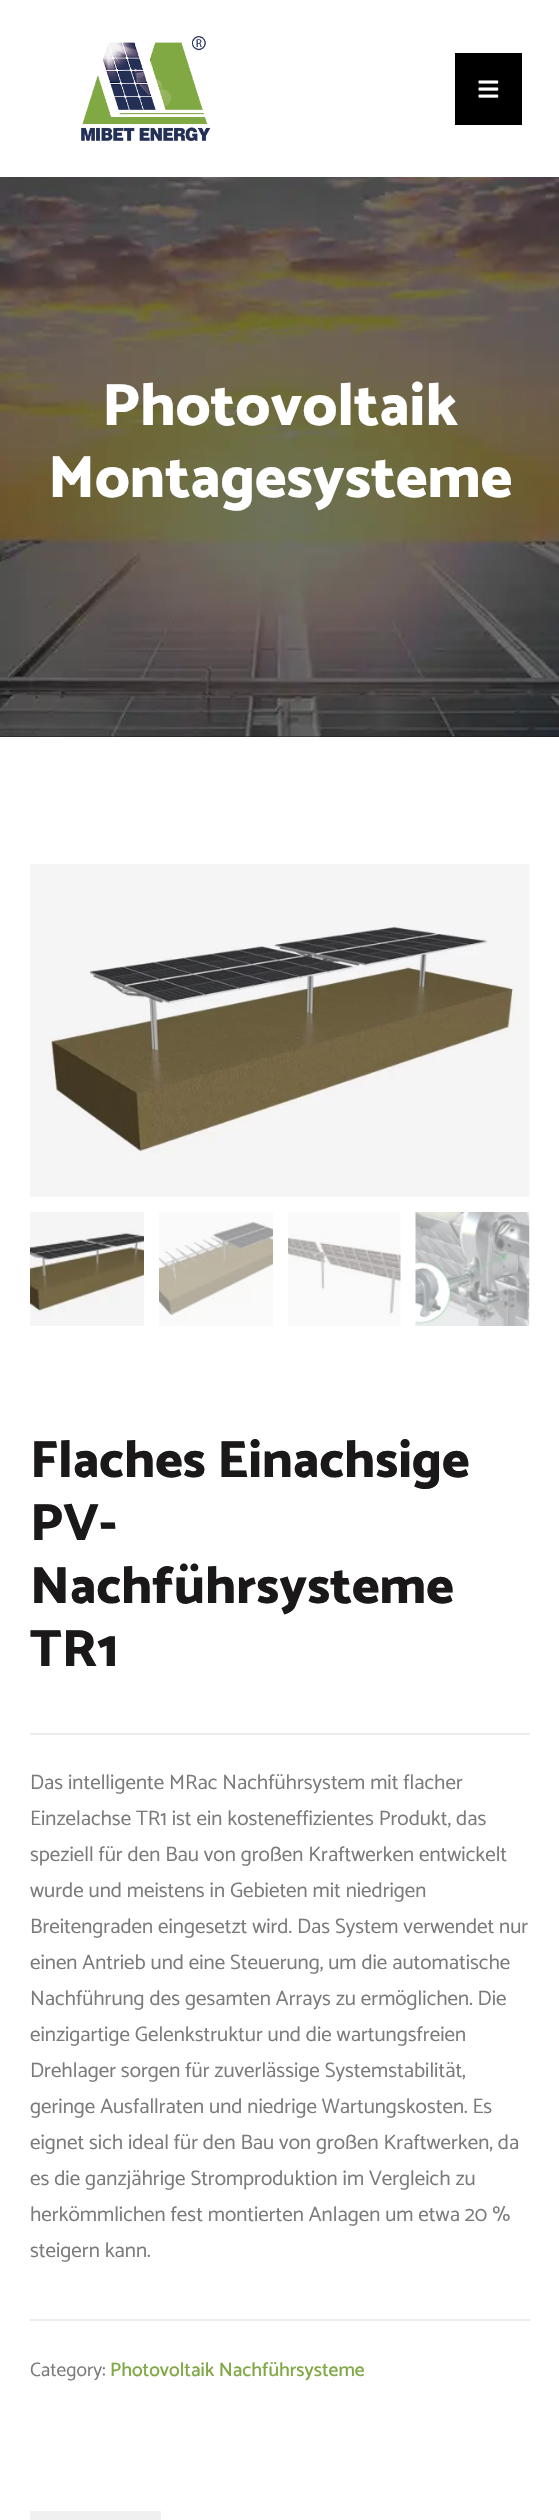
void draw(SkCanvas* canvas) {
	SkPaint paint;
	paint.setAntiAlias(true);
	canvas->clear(0xffffffff);
	canvas->drawImageRect(SkImages::DeferredFromEncodedData(SkData::MakeFromFileName("img1.png")), SkRect::MakeXYWH(81, 36, 130, 105), SkSamplingOptions());
	paint.setColor(0xff000000);
	canvas->drawRect(SkRect::MakeXYWH(455, 53, 67, 72), paint);
	canvas->drawImageRect(SkImages::DeferredFromEncodedData(SkData::MakeFromFileName("img2.png")), SkRect::MakeXYWH(478, 80, 21, 18), SkSamplingOptions());
	paint.setColor(0xff1a1819);
	canvas->drawRect(SkRect::MakeXYWH(0, 736, 559, 1), paint);
	canvas->drawImageRect(SkImages::DeferredFromEncodedData(SkData::MakeFromFileName("img3.png")), SkRect::MakeXYWH(0, 177, 559, 560), SkSamplingOptions());
	SkFont f1(fontMgr->matchFamilyStyle("Catamaran", SkFontStyle(800, SkFontStyle::kNormal_Width, SkFontStyle::kUpright_Slant)), 60);
	f1.setSubpixel(true);
	paint.setColor(0xffffffff);
	canvas->drawString("Photovoltaik", 102, 425, f1, paint);
	canvas->drawString("Montagesysteme", 48, 497, f1, paint);
	canvas->drawImageRect(SkImages::DeferredFromEncodedData(SkData::MakeFromFileName("img4.png")), SkRect::MakeXYWH(30, 864, 500, 333), SkSamplingOptions());
	canvas->drawImageRect(SkImages::DeferredFromEncodedData(SkData::MakeFromFileName("img5.png")), SkRect::MakeXYWH(30, 1212, 114, 114), SkSamplingOptions());
	canvas->drawImageRect(SkImages::DeferredFromEncodedData(SkData::MakeFromFileName("img6.png")), SkRect::MakeXYWH(159, 1212, 114, 114), SkSamplingOptions());
	canvas->drawImageRect(SkImages::DeferredFromEncodedData(SkData::MakeFromFileName("img7.png")), SkRect::MakeXYWH(288, 1212, 113, 114), SkSamplingOptions());
	canvas->drawImageRect(SkImages::DeferredFromEncodedData(SkData::MakeFromFileName("img8.png")), SkRect::MakeXYWH(415, 1212, 115, 114), SkSamplingOptions());
	SkFont f2(fontMgr->matchFamilyStyle("Catamaran", SkFontStyle(800, SkFontStyle::kNormal_Width, SkFontStyle::kUpright_Slant)), 52.5);
	f2.setSubpixel(true);
	paint.setColor(0xff1a1819);
	canvas->drawString("Flaches Einachsige", 30, 1477, f2, paint);
	canvas->drawString("PV-", 30, 1540, f2, paint);
	canvas->drawString("Nachführsysteme", 30, 1603, f2, paint);
	canvas->drawString("TR1", 30, 1666, f2, paint);
	paint.setColor(0xffebeced);
	canvas->drawRect(SkRect::MakeXYWH(30, 1733, 500, 2), paint);
	SkFont f3(fontMgr->matchFamilyStyle("Catamaran", SkFontStyle::Normal()), 21);
	f3.setSubpixel(true);
	paint.setColor(0xff7b7b7b);
	canvas->drawString("Das intelligente MRac Nachführsystem mit flacher", 30, 1789, f3, paint);
	canvas->drawString("Einzelachse TR1 ist ein kosteneffizientes Produkt, das", 30, 1825, f3, paint);
	canvas->drawString("speziell für den Bau von großen Kraftwerken entwickelt", 30, 1861, f3, paint);
	canvas->drawString("wurde und meistens in Gebieten mit niedrigen", 30, 1897, f3, paint);
	canvas->drawString("Breitengraden eingesetzt wird. Das System verwendet nur", 30, 1933, f3, paint);
	canvas->drawString("einen Antrieb und eine Steuerung, um die automatische", 30, 1969, f3, paint);
	canvas->drawString("Nachführung des gesamten Arrays zu ermöglichen. Die", 30, 2005, f3, paint);
	canvas->drawString("einzigartige Gelenkstruktur und die wartungsfreien", 30, 2041, f3, paint);
	canvas->drawString("Drehlager sorgen für zuverlässige Systemstabilität,", 30, 2077, f3, paint);
	canvas->drawString("geringe Ausfallraten und niedrige Wartungskosten. Es", 30, 2113, f3, paint);
	canvas->drawString("eignet sich ideal für den Bau von großen Kraftwerken, da", 30, 2149, f3, paint);
	canvas->drawString("es die ganzjährige Stromproduktion im Vergleich zu", 30, 2185, f3, paint);
	canvas->drawString("herkömmlichen fest montierten Anlagen um etwa 20 %", 30, 2221, f3, paint);
	canvas->drawString("steigern kann.", 30, 2257, f3, paint);
	paint.setColor(0xffebeced);
	canvas->drawRect(SkRect::MakeXYWH(30, 2319, 500, 2), paint);
	SkFont f4(fontMgr->matchFamilyStyle("Catamaran", SkFontStyle::Normal()), 19.5);
	f4.setSubpixel(true);
	paint.setColor(0xff7b7b7b);
	canvas->drawString("Category:", 30, 2376, f4, paint);
	SkFont f5(fontMgr->matchFamilyStyle("Catamaran", SkFontStyle(500, SkFontStyle::kNormal_Width, SkFontStyle::kUpright_Slant)), 19.5);
	f5.setSubpixel(true);
	paint.setColor(0xff80a945);
	canvas->drawString("Photovoltaik Nachführsysteme", 110, 2376, f5, paint);
	paint.setColor(0xfff0f0f0);
	canvas->drawRect(SkRect::MakeXYWH(30, 2511, 131, 9), paint);
}
